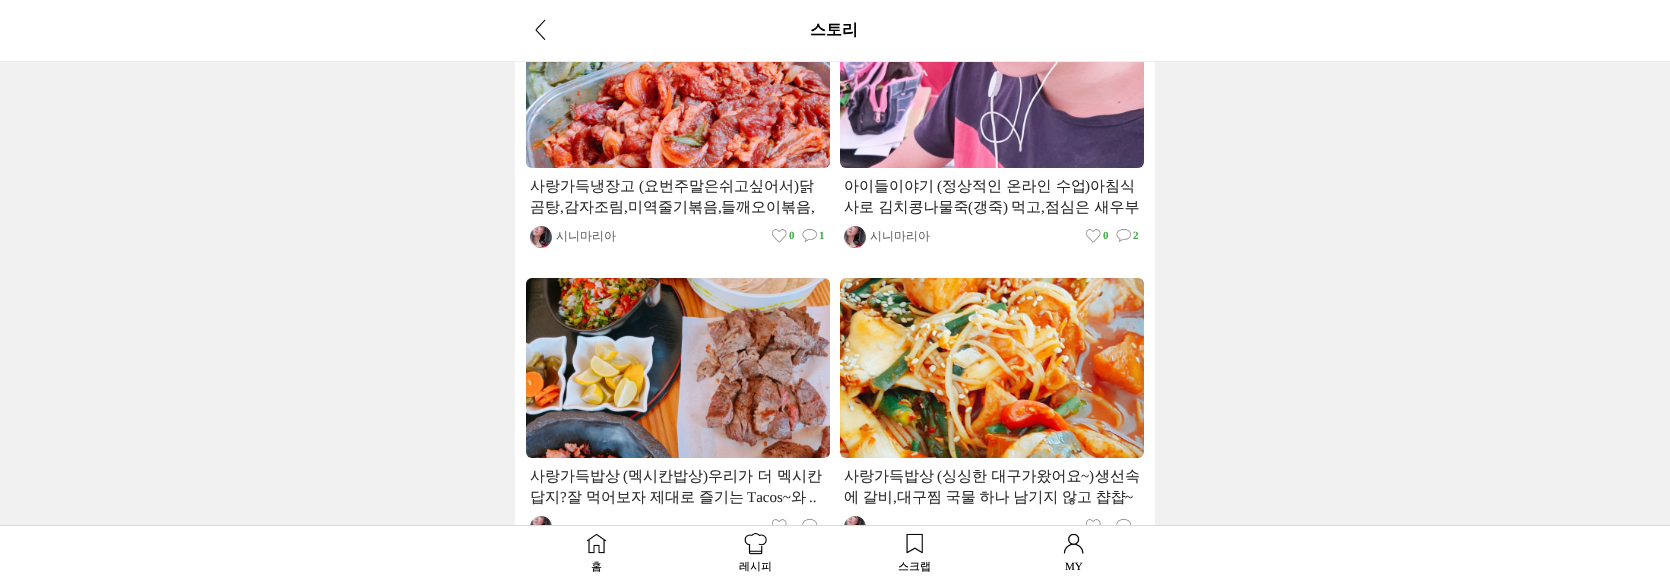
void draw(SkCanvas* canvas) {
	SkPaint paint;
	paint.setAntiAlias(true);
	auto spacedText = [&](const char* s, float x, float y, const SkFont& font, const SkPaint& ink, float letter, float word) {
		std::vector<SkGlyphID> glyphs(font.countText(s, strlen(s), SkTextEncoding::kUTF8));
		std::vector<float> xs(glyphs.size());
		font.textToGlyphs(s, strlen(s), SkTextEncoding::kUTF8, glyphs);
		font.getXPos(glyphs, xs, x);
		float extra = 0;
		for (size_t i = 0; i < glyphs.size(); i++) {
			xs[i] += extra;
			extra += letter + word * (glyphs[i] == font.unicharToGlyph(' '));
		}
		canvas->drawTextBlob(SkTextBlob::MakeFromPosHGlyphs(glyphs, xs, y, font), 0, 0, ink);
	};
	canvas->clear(0xfff1f1f2);
	paint.setColor(0xffffffff);
	canvas->drawRect(SkRect::MakeXYWH(0, 0, 1670, 61), paint);
	paint.setColor(0xffeeeeee);
	canvas->drawRect(SkRect::MakeXYWH(0, 61, 1670, 1), paint);
	canvas->drawImageRect(SkImages::DeferredFromEncodedData(SkData::MakeFromFileName("img1.png")), SkRect::MakeXYWH(535, 19, 11, 21), SkSamplingOptions());
	SkFont f1(fontMgr->matchFamilyStyle("WenQuanYi Zen Hei", SkFontStyle::Bold()), 16);
	f1.setSubpixel(true);
	paint.setColor(0xff000000);
	canvas->drawString("스토리", 810, 35, f1, paint);
	paint.setColor(0xffffffff);
	canvas->drawRect(SkRect::MakeXYWH(515, 62, 640, 463), paint);
	canvas->drawImageRect(SkImages::DeferredFromEncodedData(SkData::MakeFromFileName("img2.png")), SkRect::MakeXYWH(526, 62, 304, 106), SkSamplingOptions());
	SkFont f2(fontMgr->matchFamilyStyle("WenQuanYi Zen Hei", SkFontStyle(500, SkFontStyle::kNormal_Width, SkFontStyle::kUpright_Slant)), 15);
	f2.setSubpixel(true);
	paint.setColor(0xff2d2d2d);
	canvas->drawString("사랑가득냉장고", 530, 191, f2, paint);
	SkFont f3(fontMgr->matchFamilyStyle("Liberation Serif", SkFontStyle::Normal()), 15);
	f3.setSubpixel(true);
	canvas->drawString("(", 639, 191, f3, paint);
	canvas->drawString("요번주말은쉬고싶어서", 644, 191, f2, paint);
	canvas->drawString(")", 794, 191, f3, paint);
	canvas->drawString("닭", 799, 191, f2, paint);
	canvas->drawString("곰탕", 530, 212, f2, paint);
	canvas->drawString(",", 560, 212, f3, paint);
	canvas->drawString("감자조림", 564, 212, f2, paint);
	canvas->drawString(",", 624, 212, f3, paint);
	canvas->drawString("미역줄기볶음", 628, 212, f2, paint);
	canvas->drawString(",", 718, 212, f3, paint);
	canvas->drawString("들깨오이볶음", 721, 212, f2, paint);
	canvas->drawString(",", 811, 212, f3, paint);
	canvas->drawImageRect(SkImages::DeferredFromEncodedData(SkData::MakeFromFileName("img3.png")), SkRect::MakeXYWH(530, 226, 22, 22), SkSamplingOptions());
	SkFont f4(fontMgr->matchFamilyStyle("WenQuanYi Zen Hei", SkFontStyle(500, SkFontStyle::kNormal_Width, SkFontStyle::kUpright_Slant)), 12);
	f4.setSubpixel(true);
	paint.setColor(0xff666666);
	canvas->drawString("시니마리아", 556, 240, f4, paint);
	canvas->drawImageRect(SkImages::DeferredFromEncodedData(SkData::MakeFromFileName("img4.png")), SkRect::MakeXYWH(772, 229, 15, 14), SkSamplingOptions());
	SkFont f5(fontMgr->matchFamilyStyle("Liberation Serif", SkFontStyle::Bold()), 11);
	f5.setSubpixel(true);
	paint.setColor(0xff46ae4f);
	canvas->drawString("0", 789, 239, f5, paint);
	canvas->drawImageRect(SkImages::DeferredFromEncodedData(SkData::MakeFromFileName("img5.png")), SkRect::MakeXYWH(802, 228, 15, 14), SkSamplingOptions());
	canvas->drawString("1", 819, 239, f5, paint);
	canvas->drawImageRect(SkImages::DeferredFromEncodedData(SkData::MakeFromFileName("img6.png")), SkRect::MakeXYWH(840, 62, 304, 106), SkSamplingOptions());
	paint.setColor(0xff2d2d2d);
	canvas->drawString("아이들이야기", 844, 191, f2, paint);
	canvas->drawString("(", 937, 191, f3, paint);
	canvas->drawString("정상적인 온라인 수업", 942, 191, f2, paint);
	canvas->drawString(")", 1085, 191, f3, paint);
	canvas->drawString("아침식", 1090, 191, f2, paint);
	canvas->drawString("사로 김치콩나물죽", 844, 212, f2, paint);
	canvas->drawString("(", 968, 212, f3, paint);
	canvas->drawString("갱죽", 973, 212, f2, paint);
	canvas->drawString(")", 1003, 212, f3, paint);
	canvas->drawString("먹고", 1011, 212, f2, paint);
	canvas->drawString(",", 1041, 212, f3, paint);
	canvas->drawString("점심은 새우부", 1045, 212, f2, paint);
	canvas->drawImageRect(SkImages::DeferredFromEncodedData(SkData::MakeFromFileName("img7.png")), SkRect::MakeXYWH(844, 226, 22, 22), SkSamplingOptions());
	paint.setColor(0xff666666);
	canvas->drawString("시니마리아", 870, 240, f4, paint);
	canvas->drawImageRect(SkImages::DeferredFromEncodedData(SkData::MakeFromFileName("img4.png")), SkRect::MakeXYWH(1086, 229, 15, 14), SkSamplingOptions());
	paint.setColor(0xff46ae4f);
	canvas->drawString("0", 1103, 239, f5, paint);
	canvas->drawImageRect(SkImages::DeferredFromEncodedData(SkData::MakeFromFileName("img5.png")), SkRect::MakeXYWH(1116, 228, 15, 14), SkSamplingOptions());
	canvas->drawString("2", 1133, 239, f5, paint);
	canvas->drawImageRect(SkImages::DeferredFromEncodedData(SkData::MakeFromFileName("img8.png")), SkRect::MakeXYWH(526, 278, 304, 180), SkSamplingOptions());
	paint.setColor(0xff2d2d2d);
	canvas->drawString("사랑가득밥상", 530, 481, f2, paint);
	canvas->drawString("(", 623, 481, f3, paint);
	canvas->drawString("멕시칸밥상", 628, 481, f2, paint);
	canvas->drawString(")", 703, 481, f3, paint);
	canvas->drawString("우리가 더 멕시칸", 708, 481, f2, paint);
	canvas->drawString("답지", 530, 502, f2, paint);
	canvas->drawString("?", 560, 502, f3, paint);
	spacedText("잘 먹어보자 제대로 즐기는", 567, 502, f2, paint, 0, -0.5);
	canvas->drawString("Tacos~", 747, 502, f3, paint);
	canvas->drawString("와", 791, 502, f2, paint);
	canvas->drawString("..", 809, 502, f3, paint);
	canvas->drawImageRect(SkImages::DeferredFromEncodedData(SkData::MakeFromFileName("img9.png")), SkRect::MakeXYWH(530, 516, 22, 9), SkSamplingOptions());
	canvas->drawImageRect(SkImages::DeferredFromEncodedData(SkData::MakeFromFileName("img10.png")), SkRect::MakeXYWH(772, 519, 15, 6), SkSamplingOptions());
	canvas->drawImageRect(SkImages::DeferredFromEncodedData(SkData::MakeFromFileName("img11.png")), SkRect::MakeXYWH(802, 518, 15, 7), SkSamplingOptions());
	canvas->drawImageRect(SkImages::DeferredFromEncodedData(SkData::MakeFromFileName("img12.png")), SkRect::MakeXYWH(840, 278, 304, 180), SkSamplingOptions());
	canvas->drawString("사랑가득밥상", 844, 481, f2, paint);
	canvas->drawString("(", 937, 481, f3, paint);
	canvas->drawString("싱싱한 대구가왔어요", 942, 481, f2, paint);
	canvas->drawString("~)", 1081, 481, f3, paint);
	canvas->drawString("생선속", 1095, 481, f2, paint);
	spacedText("에 갈비", 844, 502, f2, paint, 0, -0.75);
	spacedText("대구찜 국물 하나 남기지 않고 챱챱", 897, 502, f2, paint, 0, -0.75);
	canvas->drawString("~", 1125, 502, f3, paint);
	canvas->drawString(",", 893, 502, f3, paint);
	canvas->drawImageRect(SkImages::DeferredFromEncodedData(SkData::MakeFromFileName("img13.png")), SkRect::MakeXYWH(844, 516, 22, 9), SkSamplingOptions());
	canvas->drawImageRect(SkImages::DeferredFromEncodedData(SkData::MakeFromFileName("img10.png")), SkRect::MakeXYWH(1086, 519, 15, 6), SkSamplingOptions());
	canvas->drawImageRect(SkImages::DeferredFromEncodedData(SkData::MakeFromFileName("img11.png")), SkRect::MakeXYWH(1116, 518, 15, 7), SkSamplingOptions());
	paint.setColor(0xffffffff);
	canvas->drawRect(SkRect::MakeXYWH(0, 526, 1670, 55), paint);
	paint.setColor(0xffdadada);
	canvas->drawRect(SkRect::MakeXYWH(0, 525, 1670, 1), paint);
	canvas->drawImageRect(SkImages::DeferredFromEncodedData(SkData::MakeFromFileName("img14.png")), SkRect::MakeXYWH(586, 533, 21, 21), SkSamplingOptions());
	SkFont f6(fontMgr->matchFamilyStyle("WenQuanYi Zen Hei", SkFontStyle(500, SkFontStyle::kNormal_Width, SkFontStyle::kUpright_Slant)), 11);
	f6.setSubpixel(true);
	paint.setColor(0xff000000);
	canvas->drawString("홈", 591, 570, f6, paint);
	canvas->drawImageRect(SkImages::DeferredFromEncodedData(SkData::MakeFromFileName("img15.png")), SkRect::MakeXYWH(744, 533, 23, 22), SkSamplingOptions());
	canvas->drawString("레시피", 739, 570, f6, paint);
	canvas->drawImageRect(SkImages::DeferredFromEncodedData(SkData::MakeFromFileName("img16.png")), SkRect::MakeXYWH(906, 533, 17, 21), SkSamplingOptions());
	canvas->drawString("스크랩", 898, 570, f6, paint);
	canvas->drawImageRect(SkImages::DeferredFromEncodedData(SkData::MakeFromFileName("img17.png")), SkRect::MakeXYWH(1063, 533, 21, 21), SkSamplingOptions());
	SkFont f7(fontMgr->matchFamilyStyle("Liberation Serif", SkFontStyle::Normal()), 11);
	f7.setSubpixel(true);
	canvas->drawString("MY", 1065, 570, f7, paint);
}
